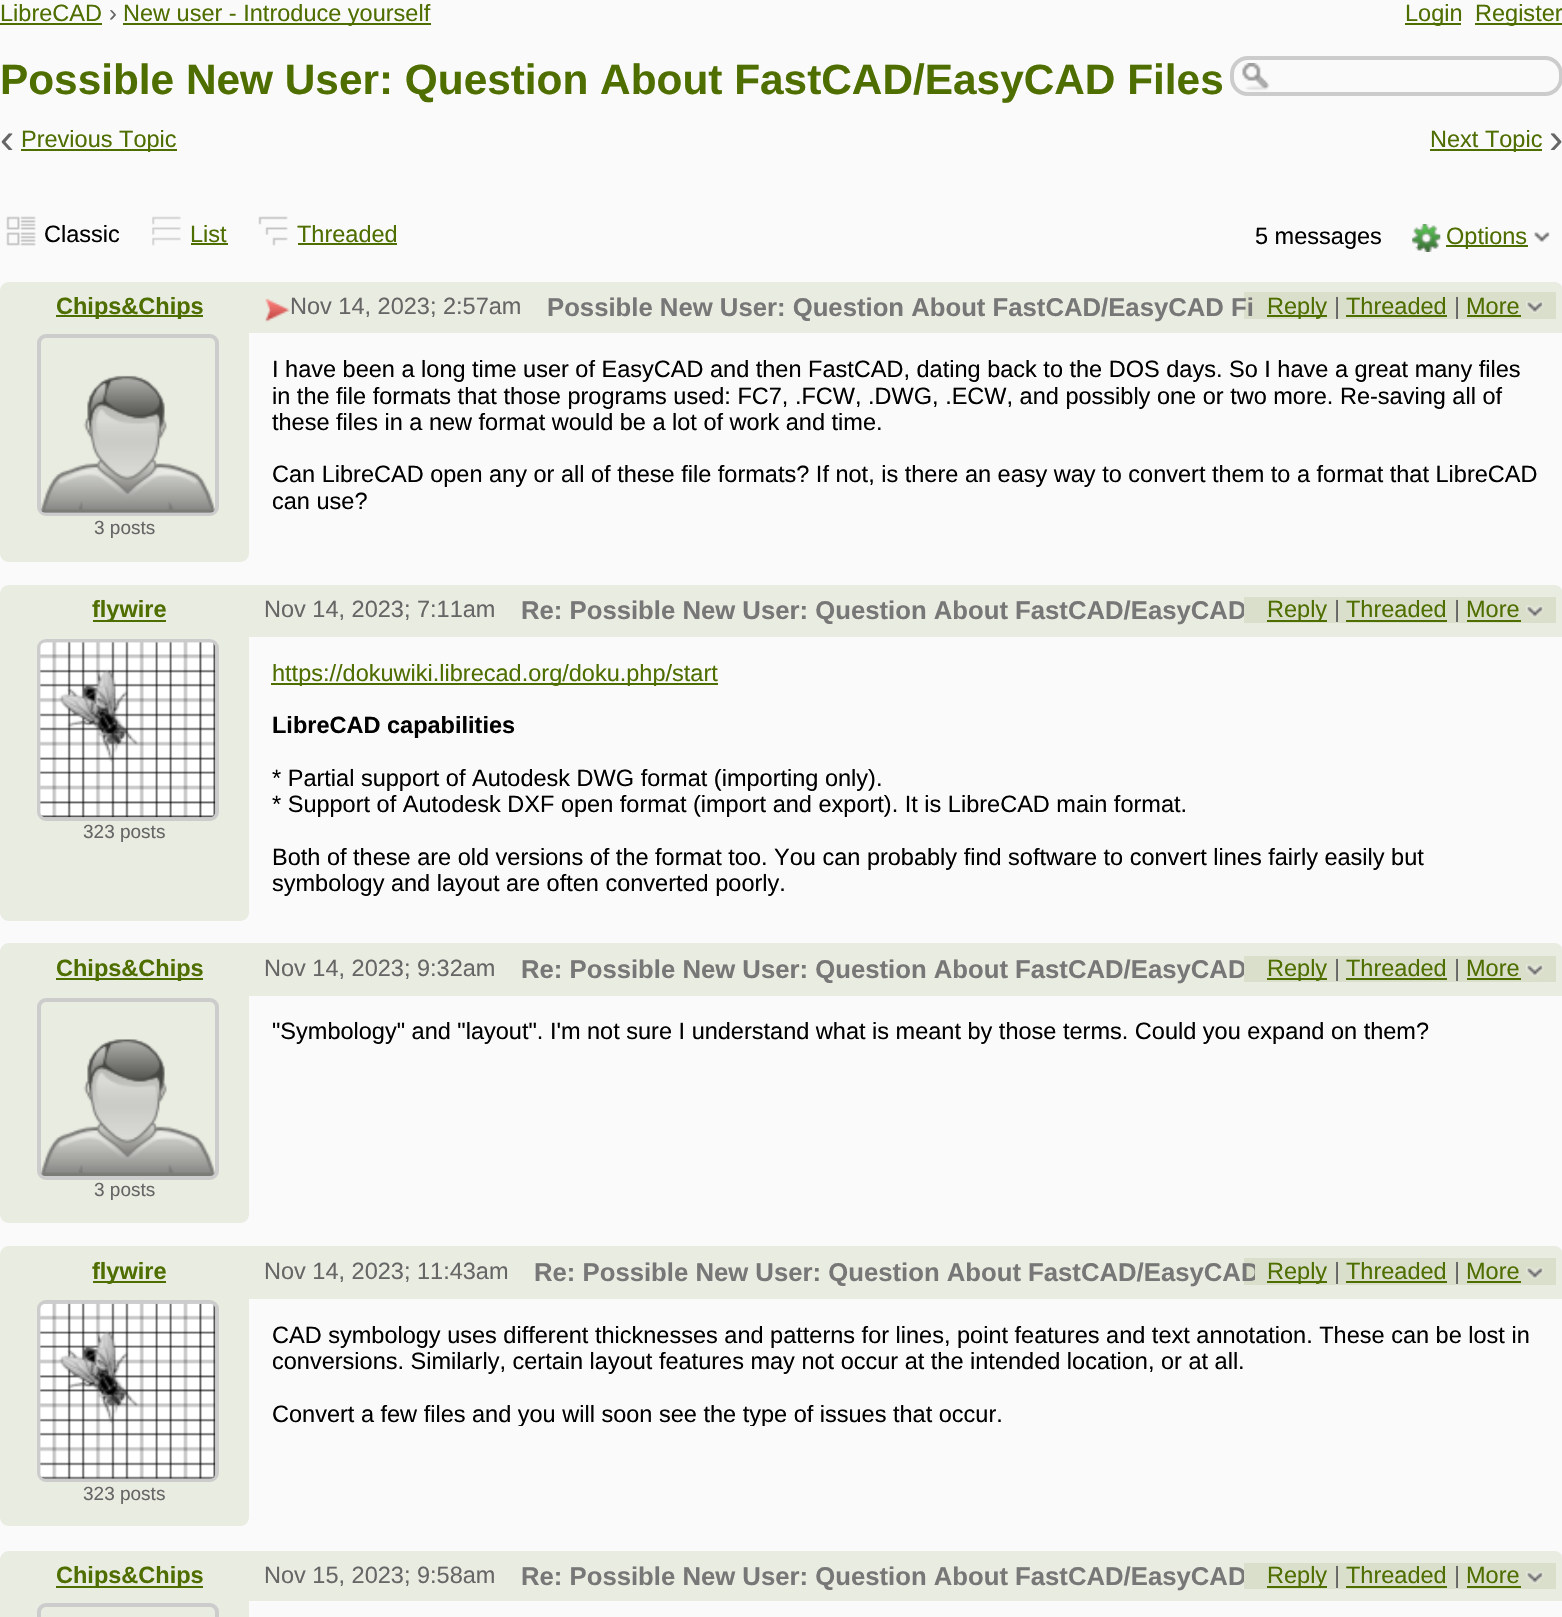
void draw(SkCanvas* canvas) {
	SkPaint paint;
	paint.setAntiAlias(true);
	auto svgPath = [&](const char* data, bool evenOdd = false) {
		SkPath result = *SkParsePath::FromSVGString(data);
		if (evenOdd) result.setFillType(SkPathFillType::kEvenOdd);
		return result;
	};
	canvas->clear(0xfffafafa);
	SkFont f1(fontMgr->matchFamilyStyle("Liberation Sans", SkFontStyle::Normal()), 23.52);
	f1.setSubpixel(true);
	paint.setColor(0xff4f6e00);
	canvas->drawString("LibreCAD", 0, 21, f1, paint);
	canvas->drawRect(SkRect::MakeXYWH(0, 23, 102, 2), paint);
	paint.setColor(0xff666666);
	canvas->drawString("›", 109, 21, f1, paint);
	paint.setColor(0xff4f6e00);
	canvas->drawRect(SkRect::MakeXYWH(123, 23, 308, 2), paint);
	canvas->drawString("New user - Introduce yourself", 123, 21, f1, paint);
	canvas->drawRect(SkRect::MakeXYWH(1405, 23, 56, 2), paint);
	canvas->drawString("Login", 1405, 21, f1, paint);
	canvas->drawRect(SkRect::MakeXYWH(1475, 23, 87, 2), paint);
	canvas->drawString("Register", 1475, 21, f1, paint);
	SkFont f2(fontMgr->matchFamilyStyle("Liberation Sans", SkFontStyle::Bold()), 42.35);
	f2.setSubpixel(true);
	canvas->drawString("Possible New User: Question About FastCAD/EasyCAD Files", 0, 94, f2, paint);
	canvas->drawImageRect(SkImages::DeferredFromEncodedData(SkData::MakeFromFileName("img1.png")), SkRect::MakeXYWH(1242, 63, 28, 28), SkSamplingOptions());
	paint.setStroke(true);
	paint.setStrokeWidth(4);
	paint.setColor(0xffcccccc);
	canvas->drawRoundRect(SkRect::MakeXYWH(1232, 58, 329, 36), 16, 16, paint);
	SkFont f3(fontMgr->matchFamilyStyle("Liberation Sans", SkFontStyle::Normal()), 42.35);
	f3.setSubpixel(true);
	paint.setStroke(false);
	paint.setColor(0xff666666);
	canvas->drawString("‹", 0, 153, f3, paint);
	paint.setColor(0xff4f6e00);
	canvas->drawRect(SkRect::MakeXYWH(21, 149, 156, 2), paint);
	canvas->drawString("Previous Topic", 21, 147, f1, paint);
	canvas->drawRect(SkRect::MakeXYWH(1430, 149, 112, 2), paint);
	canvas->drawString("Next Topic", 1430, 147, f1, paint);
	paint.setColor(0xff666666);
	canvas->drawString("›", 1549, 153, f3, paint);
	canvas->drawImageRect(SkImages::DeferredFromEncodedData(SkData::MakeFromFileName("img2.png")), SkRect::MakeXYWH(6, 216, 30, 30), SkSamplingOptions());
	paint.setColor(0xff000000);
	canvas->drawString("Classic", 44, 242, f1, paint);
	canvas->drawImageRect(SkImages::DeferredFromEncodedData(SkData::MakeFromFileName("img3.png")), SkRect::MakeXYWH(152, 216, 29, 30), SkSamplingOptions());
	paint.setColor(0xff4f6e00);
	canvas->drawString("List", 190, 242, f1, paint);
	canvas->drawRect(SkRect::MakeXYWH(191, 243, 37, 2), paint);
	canvas->drawImageRect(SkImages::DeferredFromEncodedData(SkData::MakeFromFileName("img4.png")), SkRect::MakeXYWH(258, 216, 30, 30), SkSamplingOptions());
	canvas->drawString("Threaded", 297, 242, f1, paint);
	canvas->drawRect(SkRect::MakeXYWH(298, 243, 99, 2), paint);
	paint.setColor(0xff000000);
	canvas->drawString("5 messages", 1255, 244, f1, paint);
	canvas->drawImageRect(SkImages::DeferredFromEncodedData(SkData::MakeFromFileName("img5.png")), SkRect::MakeXYWH(1412, 224, 29, 28), SkSamplingOptions());
	paint.setColor(0xff4f6e00);
	canvas->drawRect(SkRect::MakeXYWH(1446, 245, 82, 2), paint);
	canvas->drawString("Options", 1446, 244, f1, paint);
	canvas->drawImageRect(SkImages::DeferredFromEncodedData(SkData::MakeFromFileName("img6.png")), SkRect::MakeXYWH(1534, 232, 16, 10), SkSamplingOptions());
	paint.setColor(0xffe9ece1);
	canvas->drawPath(svgPath("M9 282H1554C1559 282 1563 286 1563 291V333H0V291C0 286 4 282 9 282Z"), paint);
	paint.setColor(0xff4f6e00);
	canvas->drawRect(SkRect::MakeXYWH(56, 315, 147, 2), paint);
	SkFont f4(fontMgr->matchFamilyStyle("Liberation Sans", SkFontStyle::Bold()), 23.52);
	f4.setSubpixel(true);
	canvas->drawString("Chips&Chips", 56, 314, f4, paint);
	canvas->drawImageRect(SkImages::DeferredFromEncodedData(SkData::MakeFromFileName("img7.png")), SkRect::MakeXYWH(265, 298, 25, 24), SkSamplingOptions());
	paint.setColor(0xff666666);
	canvas->drawString("Nov 14, 2023; 2:57am", 290, 314, f1, paint);
	paint.setColor(0xffdadfcb);
	canvas->drawRect(SkRect::MakeXYWH(1244, 292, 312, 27), paint);
	SkFont f5(fontMgr->matchFamilyStyle("Liberation Sans", SkFontStyle::Bold()), 25.7);
	f5.setSubpixel(true);
	paint.setColor(0xff777777);
	canvas->drawString("Possible New User: Question About FastCAD/EasyCAD Fi", 547, 316, f5, paint);
	paint.setColor(0xff4f6e00);
	canvas->drawRect(SkRect::MakeXYWH(1267, 315, 60, 2), paint);
	canvas->drawString("Reply", 1267, 314, f1, paint);
	paint.setColor(0xff666666);
	canvas->drawString("|", 1334, 314, f1, paint);
	paint.setColor(0xff4f6e00);
	canvas->drawString("Threaded", 1346, 314, f1, paint);
	canvas->drawRect(SkRect::MakeXYWH(1346, 315, 101, 2), paint);
	paint.setColor(0xff666666);
	canvas->drawString("|", 1454, 314, f1, paint);
	paint.setColor(0xff4f6e00);
	canvas->drawString("More", 1466, 314, f1, paint);
	canvas->drawRect(SkRect::MakeXYWH(1467, 315, 54, 2), paint);
	canvas->drawImageRect(SkImages::DeferredFromEncodedData(SkData::MakeFromFileName("img8.png")), SkRect::MakeXYWH(1526, 301, 18, 12), SkSamplingOptions());
	paint.setColor(0xff000000);
	canvas->drawString("I have been a long time user of EasyCAD and then FastCAD, dating back to the DOS days. So I have a great many files", 272, 377, f1, paint);
	canvas->drawString("in the file formats that those programs used: FC7, .FCW, .DWG, .ECW, and possibly one or two more. Re-saving all of", 272, 404, f1, paint);
	canvas->drawString("these files in a new format would be a lot of work and time.", 272, 430, f1, paint);
	canvas->drawString("Can LibreCAD open any or all of these file formats? If not, is there an easy way to convert them to a format that LibreCAD", 272, 482, f1, paint);
	canvas->drawString("can use?", 272, 509, f1, paint);
	paint.setColor(0xffe9ece1);
	canvas->drawPath(svgPath("M0 333H249V553C249 558 245 562 240 562H9C4 562 0 558 0 553Z"), paint);
	paint.setStroke(true);
	paint.setColor(0xffcccccc);
	canvas->drawRoundRect(SkRect::MakeXYWH(39, 336, 178, 178), 7, 7, paint);
	canvas->drawImageRect(SkImages::DeferredFromEncodedData(SkData::MakeFromFileName("img9.png")), SkRect::MakeXYWH(40, 375, 175, 138), SkSamplingOptions());
	SkFont f6(fontMgr->matchFamilyStyle("Liberation Sans", SkFontStyle::Normal()), 19);
	f6.setSubpixel(true);
	paint.setStroke(false);
	paint.setColor(0xff666666);
	canvas->drawString("3 posts", 94, 534, f6, paint);
	paint.setColor(0xffe9ece1);
	canvas->drawPath(svgPath("M9 585H1554C1559 585 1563 589 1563 594V637H0V594C0 589 4 585 9 585Z"), paint);
	paint.setColor(0xff4f6e00);
	canvas->drawRect(SkRect::MakeXYWH(93, 620, 73, 2), paint);
	canvas->drawString("flywire", 92, 617, f4, paint);
	paint.setColor(0xff666666);
	canvas->drawString("Nov 14, 2023; 7:11am", 264, 617, f1, paint);
	paint.setColor(0xff777777);
	canvas->drawString("Re: Possible New User: Question About FastCAD/EasyCAD", 521, 619, f5, paint);
	paint.setColor(0xffdadfcb);
	canvas->drawRect(SkRect::MakeXYWH(1244, 597, 312, 26), paint);
	paint.setColor(0xff4f6e00);
	canvas->drawRect(SkRect::MakeXYWH(1267, 620, 60, 2), paint);
	canvas->drawString("Reply", 1267, 617, f1, paint);
	paint.setColor(0xff666666);
	canvas->drawString("|", 1334, 617, f1, paint);
	paint.setColor(0xff4f6e00);
	canvas->drawString("Threaded", 1346, 617, f1, paint);
	canvas->drawRect(SkRect::MakeXYWH(1346, 620, 101, 2), paint);
	paint.setColor(0xff666666);
	canvas->drawString("|", 1454, 617, f1, paint);
	paint.setColor(0xff4f6e00);
	canvas->drawString("More", 1466, 617, f1, paint);
	canvas->drawRect(SkRect::MakeXYWH(1467, 620, 54, 2), paint);
	canvas->drawImageRect(SkImages::DeferredFromEncodedData(SkData::MakeFromFileName("img10.png")), SkRect::MakeXYWH(1526, 605, 18, 13), SkSamplingOptions());
	paint.setColor(0xffe9ece1);
	canvas->drawPath(svgPath("M0 637H249V912C249 917 245 921 240 921H9C4 921 0 917 0 912Z"), paint);
	paint.setStroke(true);
	paint.setColor(0xffcccccc);
	canvas->drawRoundRect(SkRect::MakeXYWH(39, 641, 178, 178), 7, 7, paint);
	canvas->drawImageRect(SkImages::DeferredFromEncodedData(SkData::MakeFromFileName("img11.png")), SkRect::MakeXYWH(40, 642, 176, 176), SkSamplingOptions());
	paint.setStroke(false);
	paint.setColor(0xff666666);
	canvas->drawString("323 posts", 83, 838, f6, paint);
	paint.setColor(0xff4f6e00);
	canvas->drawRect(SkRect::MakeXYWH(271, 683, 447, 2), paint);
	canvas->drawString("https://dokuwiki.librecad.org/doku.php/start", 272, 681, f1, paint);
	paint.setColor(0xff000000);
	canvas->drawString("LibreCAD capabilities", 272, 733, f4, paint);
	canvas->drawString("* Partial support of Autodesk DWG format (importing only).", 272, 786, f1, paint);
	canvas->drawString("* Support of Autodesk DXF open format (import and export). It is LibreCAD main format.", 272, 812, f1, paint);
	canvas->drawString("Both of these are old versions of the format too. You can probably find software to convert lines fairly easily but", 272, 865, f1, paint);
	canvas->drawString("symbology and layout are often converted poorly.", 272, 891, f1, paint);
	paint.setColor(0xffe9ece1);
	canvas->drawPath(svgPath("M9 943H1554C1559 943 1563 947 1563 952V996H0V952C0 947 4 943 9 943Z"), paint);
	paint.setColor(0xff4f6e00);
	canvas->drawRect(SkRect::MakeXYWH(56, 978, 147, 2), paint);
	canvas->drawString("Chips&Chips", 56, 976, f4, paint);
	paint.setColor(0xff666666);
	canvas->drawString("Nov 14, 2023; 9:32am", 264, 976, f1, paint);
	paint.setColor(0xff777777);
	canvas->drawString("Re: Possible New User: Question About FastCAD/EasyCAD", 521, 978, f5, paint);
	paint.setColor(0xffdadfcb);
	canvas->drawRect(SkRect::MakeXYWH(1244, 956, 312, 26), paint);
	paint.setColor(0xff4f6e00);
	canvas->drawRect(SkRect::MakeXYWH(1267, 978, 60, 2), paint);
	canvas->drawString("Reply", 1267, 976, f1, paint);
	paint.setColor(0xff666666);
	canvas->drawString("|", 1334, 976, f1, paint);
	paint.setColor(0xff4f6e00);
	canvas->drawString("Threaded", 1346, 976, f1, paint);
	canvas->drawRect(SkRect::MakeXYWH(1346, 978, 101, 2), paint);
	paint.setColor(0xff666666);
	canvas->drawString("|", 1454, 976, f1, paint);
	paint.setColor(0xff4f6e00);
	canvas->drawString("More", 1466, 976, f1, paint);
	canvas->drawRect(SkRect::MakeXYWH(1467, 978, 54, 2), paint);
	canvas->drawImageRect(SkImages::DeferredFromEncodedData(SkData::MakeFromFileName("img12.png")), SkRect::MakeXYWH(1526, 964, 18, 13), SkSamplingOptions());
	paint.setColor(0xff000000);
	canvas->drawString("\"Symbology\" and \"layout\". I'm not sure I understand what is meant by those terms. Could you expand on them?", 272, 1039, f1, paint);
	paint.setColor(0xffe9ece1);
	canvas->drawPath(svgPath("M0 996H249V1214C249 1219 245 1223 240 1223H9C4 1223 0 1219 0 1214Z"), paint);
	paint.setStroke(true);
	paint.setColor(0xffcccccc);
	canvas->drawRoundRect(SkRect::MakeXYWH(39, 1000, 178, 178), 7, 7, paint);
	canvas->drawImageRect(SkImages::DeferredFromEncodedData(SkData::MakeFromFileName("img13.png")), SkRect::MakeXYWH(40, 1039, 175, 137), SkSamplingOptions());
	paint.setStroke(false);
	paint.setColor(0xff666666);
	canvas->drawString("3 posts", 94, 1196, f6, paint);
	paint.setColor(0xffe9ece1);
	canvas->drawPath(svgPath("M9 1246H1554C1559 1246 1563 1250 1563 1255V1299H0V1255C0 1250 4 1246 9 1246Z"), paint);
	paint.setColor(0xff4f6e00);
	canvas->drawRect(SkRect::MakeXYWH(93, 1281, 73, 2), paint);
	canvas->drawString("flywire", 92, 1279, f4, paint);
	paint.setColor(0xff666666);
	canvas->drawString("Nov 14, 2023; 11:43am", 264, 1279, f1, paint);
	paint.setColor(0xffdadfcb);
	canvas->drawRect(SkRect::MakeXYWH(1244, 1258, 312, 27), paint);
	canvas->save();
	canvas->clipRect(SkRect::MakeXYWH(264, 1258, 991, 32));
	paint.setColor(0xff777777);
	canvas->drawString("Re: Possible New User: Question About FastCAD/EasyCAD", 534, 1281, f5, paint);
	canvas->restore();
	paint.setColor(0xff4f6e00);
	canvas->drawRect(SkRect::MakeXYWH(1267, 1281, 60, 2), paint);
	canvas->drawString("Reply", 1267, 1279, f1, paint);
	paint.setColor(0xff666666);
	canvas->drawString("|", 1334, 1279, f1, paint);
	paint.setColor(0xff4f6e00);
	canvas->drawString("Threaded", 1346, 1279, f1, paint);
	canvas->drawRect(SkRect::MakeXYWH(1346, 1281, 101, 2), paint);
	paint.setColor(0xff666666);
	canvas->drawString("|", 1454, 1279, f1, paint);
	paint.setColor(0xff4f6e00);
	canvas->drawString("More", 1466, 1279, f1, paint);
	canvas->drawRect(SkRect::MakeXYWH(1467, 1281, 54, 2), paint);
	canvas->drawImageRect(SkImages::DeferredFromEncodedData(SkData::MakeFromFileName("img8.png")), SkRect::MakeXYWH(1526, 1267, 18, 12), SkSamplingOptions());
	paint.setColor(0xff000000);
	canvas->drawString("CAD symbology uses different thicknesses and patterns for lines, point features and text annotation. These can be lost in", 272, 1343, f1, paint);
	canvas->drawString("conversions. Similarly, certain layout features may not occur at the intended location, or at all.", 272, 1369, f1, paint);
	canvas->save();
	canvas->clipRect(SkRect::MakeXYWH(271, 1321, 1269, 105));
	canvas->drawString("Convert a few files and you will soon see the type of issues that occur.", 272, 1422, f1, paint);
	canvas->restore();
	paint.setColor(0xffe9ece1);
	canvas->drawPath(svgPath("M0 1299H249V1517C249 1522 245 1526 240 1526H9C4 1526 0 1522 0 1517Z"), paint);
	paint.setStroke(true);
	paint.setColor(0xffcccccc);
	canvas->drawRoundRect(SkRect::MakeXYWH(39, 1302, 178, 178), 7, 7, paint);
	canvas->drawImageRect(SkImages::DeferredFromEncodedData(SkData::MakeFromFileName("img14.png")), SkRect::MakeXYWH(40, 1303, 176, 176), SkSamplingOptions());
	paint.setStroke(false);
	paint.setColor(0xff666666);
	canvas->drawString("323 posts", 83, 1500, f6, paint);
	paint.setColor(0xffe9ece1);
	canvas->drawPath(svgPath("M9 1551H1554C1559 1551 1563 1555 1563 1560V1601H0V1560C0 1555 4 1551 9 1551Z"), paint);
	paint.setColor(0xff4f6e00);
	canvas->drawRect(SkRect::MakeXYWH(56, 1586, 147, 2), paint);
	canvas->drawString("Chips&Chips", 56, 1583, f4, paint);
	paint.setColor(0xff666666);
	canvas->drawString("Nov 15, 2023; 9:58am", 264, 1583, f1, paint);
	paint.setColor(0xff777777);
	canvas->drawString("Re: Possible New User: Question About FastCAD/EasyCAD", 521, 1585, f5, paint);
	paint.setColor(0xffdadfcb);
	canvas->drawRect(SkRect::MakeXYWH(1244, 1563, 312, 26), paint);
	paint.setColor(0xff4f6e00);
	canvas->drawRect(SkRect::MakeXYWH(1267, 1586, 60, 2), paint);
	canvas->drawString("Reply", 1267, 1583, f1, paint);
	paint.setColor(0xff666666);
	canvas->drawString("|", 1334, 1583, f1, paint);
	paint.setColor(0xff4f6e00);
	canvas->drawString("Threaded", 1346, 1583, f1, paint);
	canvas->drawRect(SkRect::MakeXYWH(1346, 1586, 101, 2), paint);
	paint.setColor(0xff666666);
	canvas->drawString("|", 1454, 1583, f1, paint);
	paint.setColor(0xff4f6e00);
	canvas->drawString("More", 1466, 1583, f1, paint);
	canvas->drawRect(SkRect::MakeXYWH(1467, 1586, 54, 2), paint);
	canvas->drawImageRect(SkImages::DeferredFromEncodedData(SkData::MakeFromFileName("img10.png")), SkRect::MakeXYWH(1526, 1571, 18, 13), SkSamplingOptions());
	paint.setColor(0xffe9ece1);
	canvas->drawRect(SkRect::MakeXYWH(0, 1601, 249, 16), paint);
	paint.setStroke(true);
	paint.setColor(0xffcccccc);
	canvas->drawRoundRect(SkRect::MakeXYWH(39, 1605, 178, 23), 7, 7, paint);
}
